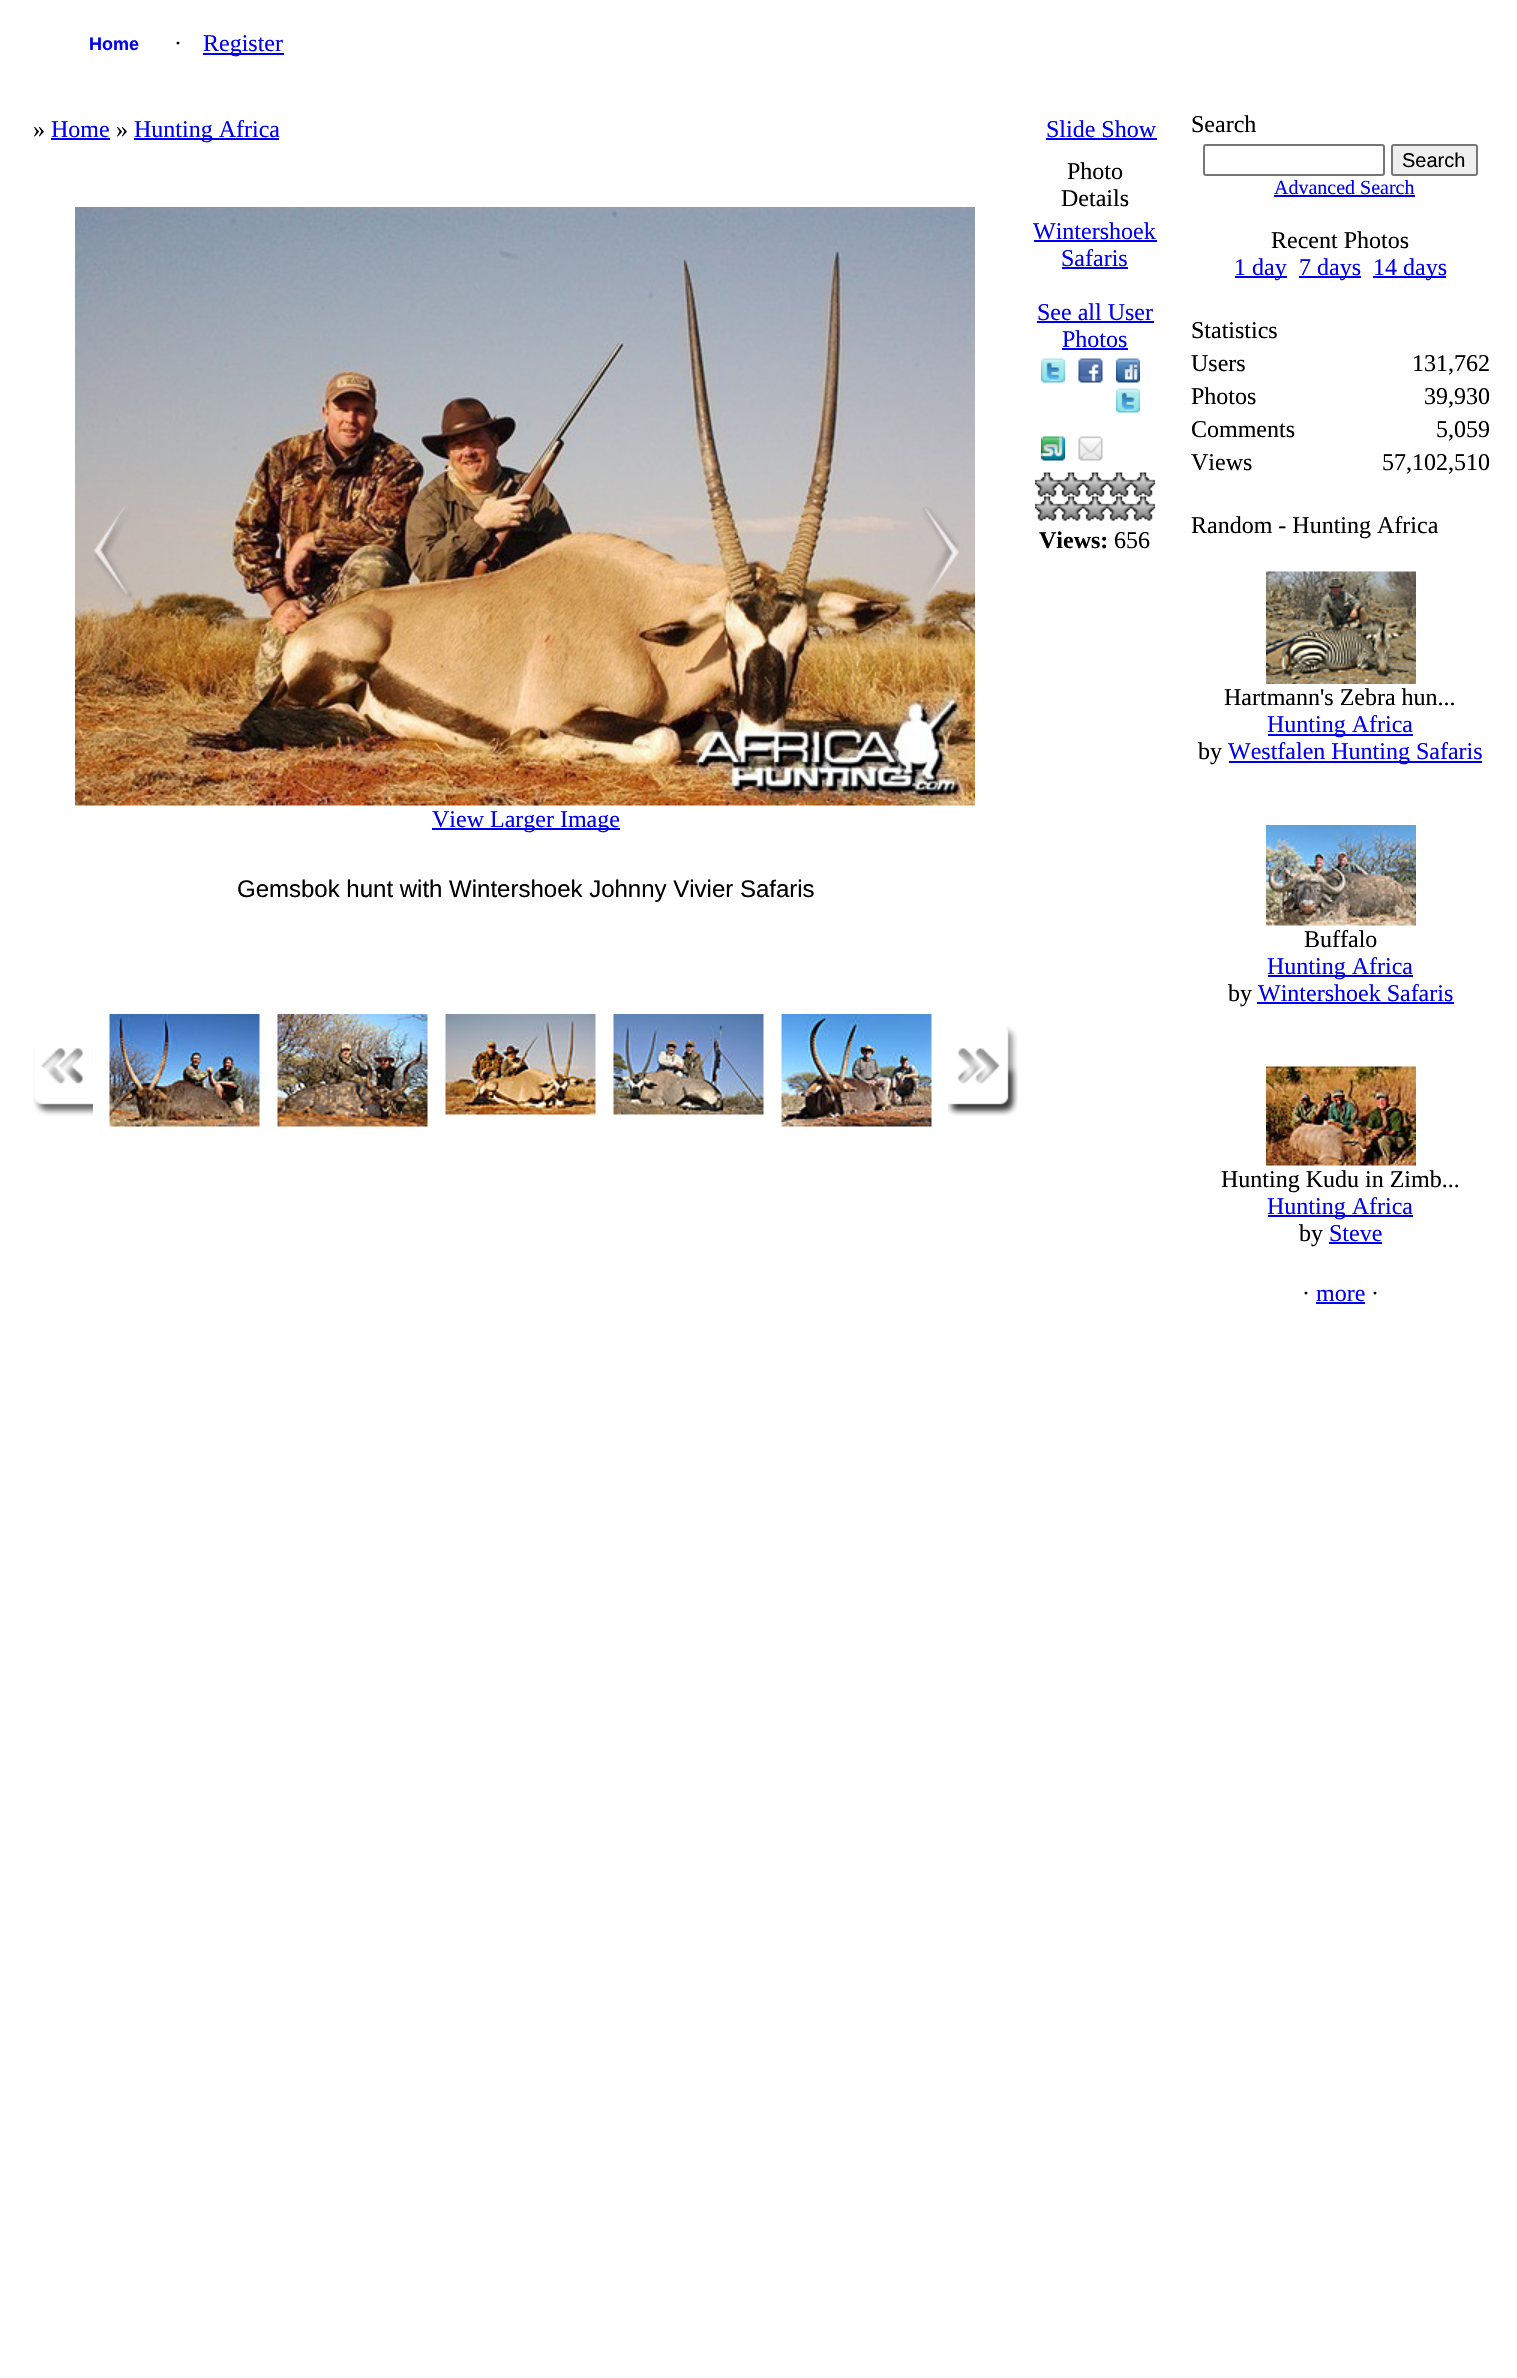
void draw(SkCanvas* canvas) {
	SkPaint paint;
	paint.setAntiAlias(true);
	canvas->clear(0xffffffff);
	SkFont f1(fontMgr->matchFamilyStyle("Liberation Sans", SkFontStyle::Bold()), 18);
	f1.setSubpixel(true);
	paint.setColor(0xff0000ee);
	canvas->drawString("Home", 89, 50, f1, paint);
	SkFont f2(fontMgr->matchFamilyStyle("Liberation Serif", SkFontStyle::Normal()), 24);
	f2.setSubpixel(true);
	paint.setColor(0xff000000);
	canvas->drawString("·", 174, 51, f2, paint);
	paint.setColor(0xff0000ee);
	canvas->drawRect(SkRect::MakeXYWH(203, 53, 81, 2), paint);
	canvas->drawString("Register", 203, 51, f2, paint);
	paint.setColor(0xff000000);
	canvas->drawString("»", 33, 137, f2, paint);
	paint.setColor(0xff0000ee);
	canvas->drawString("Home", 51, 137, f2, paint);
	canvas->drawRect(SkRect::MakeXYWH(51, 138, 59, 2), paint);
	paint.setColor(0xff000000);
	canvas->drawString("»", 116, 137, f2, paint);
	paint.setColor(0xff0000ee);
	canvas->drawRect(SkRect::MakeXYWH(134, 138, 145, 2), paint);
	canvas->drawString("Hunting Africa", 134, 137, f2, paint);
	canvas->drawString("Slide Show", 1046, 137, f2, paint);
	canvas->drawRect(SkRect::MakeXYWH(1046, 138, 111, 2), paint);
	paint.setColor(0xff000000);
	canvas->drawString("Photo", 1067, 179, f2, paint);
	canvas->drawString("Details", 1061, 206, f2, paint);
	paint.setColor(0xff0000ee);
	canvas->drawString("Wintershoek", 1033, 239, f2, paint);
	canvas->drawRect(SkRect::MakeXYWH(1034, 240, 123, 2), paint);
	canvas->drawString("Safaris", 1061, 266, f2, paint);
	canvas->drawRect(SkRect::MakeXYWH(1062, 267, 66, 2), paint);
	canvas->drawString("See all User", 1037, 320, f2, paint);
	canvas->drawRect(SkRect::MakeXYWH(1037, 321, 117, 2), paint);
	canvas->drawString("Photos", 1062, 347, f2, paint);
	canvas->drawRect(SkRect::MakeXYWH(1062, 348, 66, 2), paint);
	canvas->drawImageRect(SkImages::DeferredFromEncodedData(SkData::MakeFromFileName("img1.png")), SkRect::MakeXYWH(1041, 358, 24, 25), SkSamplingOptions());
	canvas->drawImageRect(SkImages::DeferredFromEncodedData(SkData::MakeFromFileName("img2.png")), SkRect::MakeXYWH(1078, 358, 25, 25), SkSamplingOptions());
	canvas->drawImageRect(SkImages::DeferredFromEncodedData(SkData::MakeFromFileName("img3.png")), SkRect::MakeXYWH(1116, 358, 24, 25), SkSamplingOptions());
	canvas->drawImageRect(SkImages::DeferredFromEncodedData(SkData::MakeFromFileName("img1.png")), SkRect::MakeXYWH(1116, 388, 24, 25), SkSamplingOptions());
	canvas->drawImageRect(SkImages::DeferredFromEncodedData(SkData::MakeFromFileName("img4.png")), SkRect::MakeXYWH(1041, 436, 24, 25), SkSamplingOptions());
	canvas->drawImageRect(SkImages::DeferredFromEncodedData(SkData::MakeFromFileName("img5.png")), SkRect::MakeXYWH(1078, 436, 25, 25), SkSamplingOptions());
	canvas->drawImageRect(SkImages::DeferredFromEncodedData(SkData::MakeFromFileName("img6.png")), SkRect::MakeXYWH(1035, 472, 24, 25), SkSamplingOptions());
	canvas->drawImageRect(SkImages::DeferredFromEncodedData(SkData::MakeFromFileName("img7.png")), SkRect::MakeXYWH(1059, 472, 24, 25), SkSamplingOptions());
	canvas->drawImageRect(SkImages::DeferredFromEncodedData(SkData::MakeFromFileName("img7.png")), SkRect::MakeXYWH(1083, 472, 24, 25), SkSamplingOptions());
	canvas->drawImageRect(SkImages::DeferredFromEncodedData(SkData::MakeFromFileName("img7.png")), SkRect::MakeXYWH(1107, 472, 24, 25), SkSamplingOptions());
	canvas->drawImageRect(SkImages::DeferredFromEncodedData(SkData::MakeFromFileName("img7.png")), SkRect::MakeXYWH(1131, 472, 24, 25), SkSamplingOptions());
	canvas->drawImageRect(SkImages::DeferredFromEncodedData(SkData::MakeFromFileName("img8.png")), SkRect::MakeXYWH(1035, 496, 24, 25), SkSamplingOptions());
	canvas->drawImageRect(SkImages::DeferredFromEncodedData(SkData::MakeFromFileName("img9.png")), SkRect::MakeXYWH(1059, 496, 24, 25), SkSamplingOptions());
	canvas->drawImageRect(SkImages::DeferredFromEncodedData(SkData::MakeFromFileName("img9.png")), SkRect::MakeXYWH(1083, 496, 24, 25), SkSamplingOptions());
	canvas->drawImageRect(SkImages::DeferredFromEncodedData(SkData::MakeFromFileName("img9.png")), SkRect::MakeXYWH(1107, 496, 24, 25), SkSamplingOptions());
	canvas->drawImageRect(SkImages::DeferredFromEncodedData(SkData::MakeFromFileName("img9.png")), SkRect::MakeXYWH(1131, 496, 24, 25), SkSamplingOptions());
	SkFont f3(fontMgr->matchFamilyStyle("Liberation Serif", SkFontStyle::Bold()), 24);
	f3.setSubpixel(true);
	paint.setColor(0xff000000);
	canvas->drawString("Views:", 1039, 548, f3, paint);
	canvas->drawString("656", 1114, 548, f2, paint);
	canvas->drawImageRect(SkImages::DeferredFromEncodedData(SkData::MakeFromFileName("img10.png")), SkRect::MakeXYWH(75, 207, 900, 599), SkSamplingOptions());
	canvas->drawImageRect(SkImages::DeferredFromEncodedData(SkData::MakeFromFileName("img11.png")), SkRect::MakeXYWH(94, 507, 37, 91), SkSamplingOptions());
	canvas->drawImageRect(SkImages::DeferredFromEncodedData(SkData::MakeFromFileName("img12.png")), SkRect::MakeXYWH(922, 507, 37, 89), SkSamplingOptions());
	paint.setColor(0xff0000ee);
	canvas->drawRect(SkRect::MakeXYWH(432, 828, 188, 2), paint);
	canvas->drawString("View Larger Image", 432, 827, f2, paint);
	SkFont f4(fontMgr->matchFamilyStyle("Liberation Sans", SkFontStyle::Normal()), 24);
	f4.setSubpixel(true);
	paint.setColor(0xff000000);
	canvas->drawString("Gemsbok hunt with Wintershoek Johnny Vivier Safaris", 237, 897, f4, paint);
	canvas->drawImageRect(SkImages::DeferredFromEncodedData(SkData::MakeFromFileName("img13.png")), SkRect::MakeXYWH(33, 1048, 60, 68), SkSamplingOptions());
	canvas->drawImageRect(SkImages::DeferredFromEncodedData(SkData::MakeFromFileName("img14.png")), SkRect::MakeXYWH(109, 1014, 151, 113), SkSamplingOptions());
	canvas->drawImageRect(SkImages::DeferredFromEncodedData(SkData::MakeFromFileName("img15.png")), SkRect::MakeXYWH(277, 1014, 151, 113), SkSamplingOptions());
	canvas->drawImageRect(SkImages::DeferredFromEncodedData(SkData::MakeFromFileName("img16.png")), SkRect::MakeXYWH(445, 1014, 151, 101), SkSamplingOptions());
	canvas->drawImageRect(SkImages::DeferredFromEncodedData(SkData::MakeFromFileName("img17.png")), SkRect::MakeXYWH(613, 1014, 151, 101), SkSamplingOptions());
	canvas->drawImageRect(SkImages::DeferredFromEncodedData(SkData::MakeFromFileName("img18.png")), SkRect::MakeXYWH(781, 1014, 151, 113), SkSamplingOptions());
	canvas->drawImageRect(SkImages::DeferredFromEncodedData(SkData::MakeFromFileName("img19.png")), SkRect::MakeXYWH(948, 1026, 70, 90), SkSamplingOptions());
	canvas->drawString("Search", 1191, 132, f2, paint);
	paint.setStroke(true);
	paint.setStrokeWidth(2);
	paint.setColor(0xff767676);
	canvas->drawRoundRect(SkRect::MakeXYWH(1204, 145, 180, 30), 2, 2, paint);
	paint.setStroke(false);
	paint.setColor(0xffefefef);
	canvas->drawRoundRect(SkRect::MakeXYWH(1392, 145, 85, 30), 2, 2, paint);
	paint.setStroke(true);
	paint.setColor(0xff767676);
	canvas->drawRoundRect(SkRect::MakeXYWH(1392, 145, 85, 30), 2, 2, paint);
	SkFont f5(fontMgr->matchFamilyStyle("Liberation Sans", SkFontStyle::Normal()), 20);
	f5.setSubpixel(true);
	paint.setStroke(false);
	paint.setColor(0xff000000);
	canvas->drawString("Search", 1402, 167, f5, paint);
	SkFont f6(fontMgr->matchFamilyStyle("Liberation Serif", SkFontStyle::Normal()), 20);
	f6.setSubpixel(true);
	paint.setColor(0xff0000ee);
	canvas->drawString("Advanced Search", 1274, 194, f6, paint);
	canvas->drawRect(SkRect::MakeXYWH(1274, 195, 141, 2), paint);
	paint.setColor(0xff000000);
	canvas->drawString("Recent Photos", 1271, 248, f2, paint);
	paint.setColor(0xff0000ee);
	canvas->drawRect(SkRect::MakeXYWH(1235, 276, 52, 2), paint);
	canvas->drawString("1 day", 1234, 275, f2, paint);
	canvas->drawRect(SkRect::MakeXYWH(1299, 276, 62, 2), paint);
	canvas->drawString("7 days", 1299, 275, f2, paint);
	canvas->drawRect(SkRect::MakeXYWH(1373, 276, 73, 2), paint);
	canvas->drawString("14 days", 1373, 275, f2, paint);
	paint.setColor(0xff000000);
	canvas->drawString("Statistics", 1191, 338, f2, paint);
	canvas->drawString("Users", 1191, 371, f2, paint);
	canvas->drawString("131,762", 1412, 371, f2, paint);
	canvas->drawString("Photos", 1191, 404, f2, paint);
	canvas->drawString("39,930", 1424, 404, f2, paint);
	canvas->drawString("Comments", 1191, 437, f2, paint);
	canvas->drawString("5,059", 1436, 437, f2, paint);
	canvas->drawString("Views", 1191, 470, f2, paint);
	canvas->drawString("57,102,510", 1382, 470, f2, paint);
	canvas->drawString("Random - Hunting Africa", 1191, 533, f2, paint);
	canvas->drawImageRect(SkImages::DeferredFromEncodedData(SkData::MakeFromFileName("img20.png")), SkRect::MakeXYWH(1266, 571, 150, 113), SkSamplingOptions());
	canvas->drawString("Hartmann's Zebra hun...", 1224, 705, f2, paint);
	paint.setColor(0xff0000ee);
	canvas->drawRect(SkRect::MakeXYWH(1268, 734, 145, 2), paint);
	canvas->drawString("Hunting Africa", 1267, 732, f2, paint);
	paint.setColor(0xff000000);
	canvas->drawString("by", 1198, 759, f2, paint);
	paint.setColor(0xff0000ee);
	canvas->drawRect(SkRect::MakeXYWH(1229, 761, 253, 2), paint);
	canvas->drawString("Westfalen Hunting Safaris", 1228, 759, f2, paint);
	canvas->drawImageRect(SkImages::DeferredFromEncodedData(SkData::MakeFromFileName("img21.png")), SkRect::MakeXYWH(1266, 825, 150, 101), SkSamplingOptions());
	paint.setColor(0xff000000);
	canvas->drawString("Buffalo", 1304, 947, f2, paint);
	paint.setColor(0xff0000ee);
	canvas->drawRect(SkRect::MakeXYWH(1268, 975, 145, 2), paint);
	canvas->drawString("Hunting Africa", 1267, 974, f2, paint);
	paint.setColor(0xff000000);
	canvas->drawString("by", 1228, 1001, f2, paint);
	paint.setColor(0xff0000ee);
	canvas->drawRect(SkRect::MakeXYWH(1257, 1002, 197, 2), paint);
	canvas->drawString("Wintershoek Safaris", 1258, 1001, f2, paint);
	canvas->drawImageRect(SkImages::DeferredFromEncodedData(SkData::MakeFromFileName("img22.png")), SkRect::MakeXYWH(1266, 1066, 150, 100), SkSamplingOptions());
	paint.setColor(0xff000000);
	canvas->drawString("Hunting Kudu in Zimb...", 1221, 1187, f2, paint);
	paint.setColor(0xff0000ee);
	canvas->drawRect(SkRect::MakeXYWH(1268, 1215, 145, 2), paint);
	canvas->drawString("Hunting Africa", 1267, 1214, f2, paint);
	paint.setColor(0xff000000);
	canvas->drawString("by", 1299, 1241, f2, paint);
	paint.setColor(0xff0000ee);
	canvas->drawString("Steve", 1329, 1241, f2, paint);
	canvas->drawRect(SkRect::MakeXYWH(1329, 1242, 53, 2), paint);
	paint.setColor(0xff000000);
	canvas->drawString("·", 1302, 1301, f2, paint);
	paint.setColor(0xff0000ee);
	canvas->drawString("more", 1316, 1301, f2, paint);
	canvas->drawRect(SkRect::MakeXYWH(1316, 1302, 49, 2), paint);
	paint.setColor(0xff000000);
	canvas->drawString("·", 1371, 1301, f2, paint);
}
